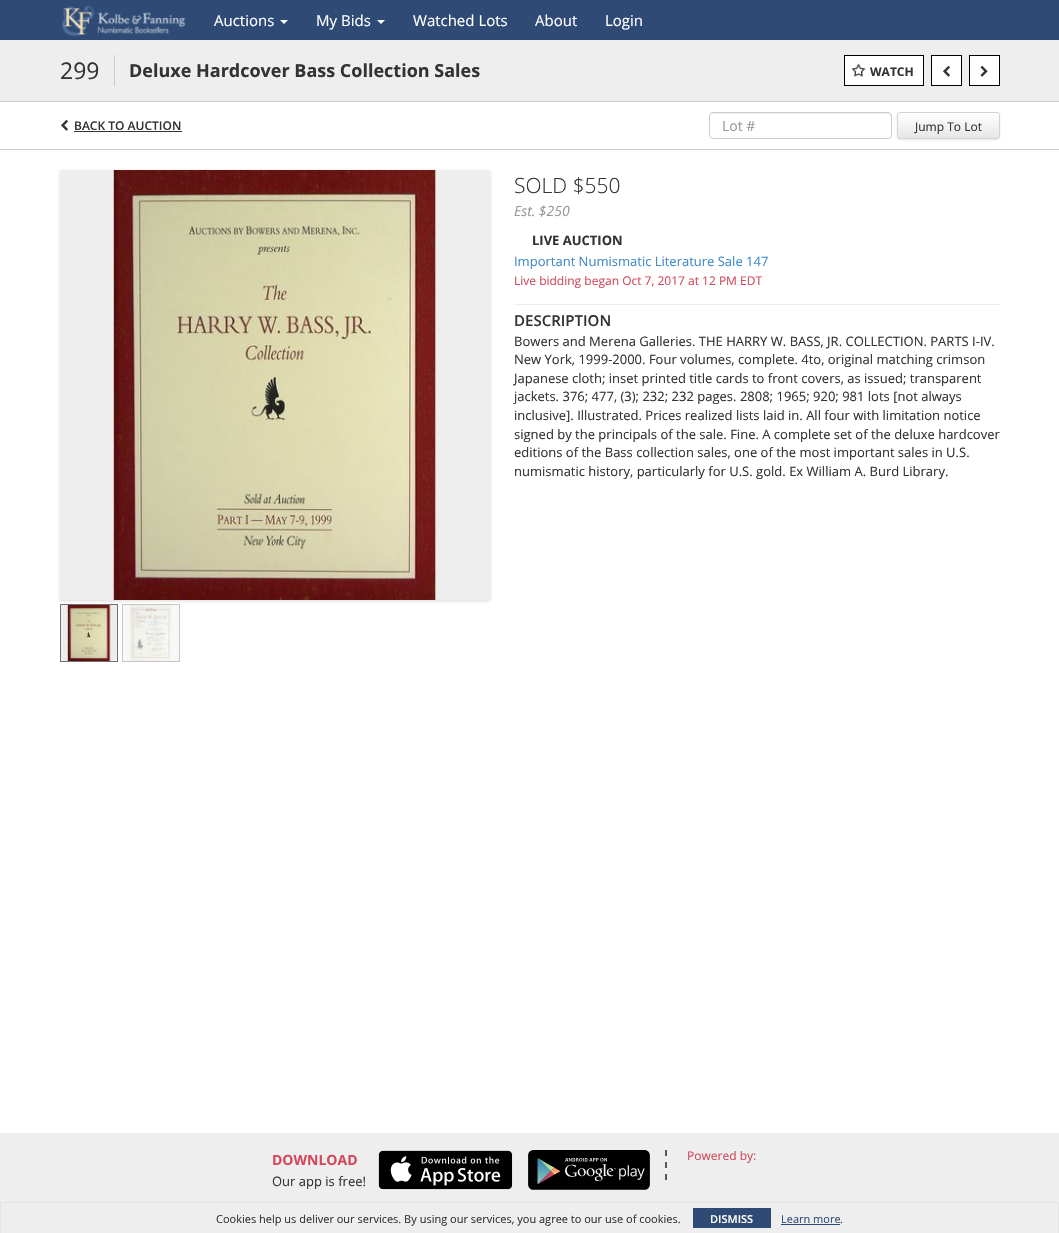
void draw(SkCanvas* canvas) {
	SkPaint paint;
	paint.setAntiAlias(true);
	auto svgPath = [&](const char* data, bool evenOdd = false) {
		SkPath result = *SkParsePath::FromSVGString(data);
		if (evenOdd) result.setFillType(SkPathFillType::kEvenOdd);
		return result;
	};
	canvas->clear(0xffffffff);
	paint.setColor(0xff2e4a75);
	canvas->drawRect(SkRect::MakeXYWH(0, 0, 1059, 40), paint);
	canvas->drawImageRect(SkImages::DeferredFromEncodedData(SkData::MakeFromFileName("img1.png")), SkRect::MakeXYWH(61, 5, 125, 32), SkSamplingOptions());
	SkFont f1(fontMgr->matchFamilyStyle("Open Sans", SkFontStyle::Normal()), 15);
	f1.setSubpixel(true);
	paint.setColor(0xffffffff);
	canvas->drawString("Auctions", 214, 26, f1, paint);
	canvas->drawPath(svgPath("M280 20H288L284 24Z"), paint);
	canvas->drawString("My Bids", 316, 26, f1, paint);
	canvas->drawPath(svgPath("M377 20H385L381 24Z"), paint);
	canvas->drawString("Watched Lots", 413, 26, f1, paint);
	canvas->drawString("About", 535, 26, f1, paint);
	canvas->drawString("Login", 605, 26, f1, paint);
	paint.setColor(0xffeeeeee);
	canvas->drawRect(SkRect::MakeXYWH(0, 40, 1059, 61), paint);
	paint.setColor(0xffcccccc);
	canvas->drawRect(SkRect::MakeXYWH(0, 101, 1059, 1), paint);
	SkFont f2(fontMgr->matchFamilyStyle("Open Sans", SkFontStyle::Normal()), 23);
	f2.setSubpixel(true);
	paint.setColor(0xff333333);
	canvas->drawString("299", 60, 79, f2, paint);
	paint.setColor(0xffcccccc);
	canvas->drawRect(SkRect::MakeXYWH(114, 55, 1, 31), paint);
	SkFont f3(fontMgr->matchFamilyStyle("Open Sans", SkFontStyle::Bold()), 18);
	f3.setSubpixel(true);
	paint.setColor(0xff333333);
	canvas->drawString("Deluxe Hardcover Bass Collection Sales", 129, 77, f3, paint);
	paint.setColor(0xffffffff);
	canvas->drawRect(SkRect::MakeXYWH(844.5, 55.5, 79, 30), paint);
	paint.setStroke(true);
	paint.setStrokeWidth(1);
	paint.setColor(0xff000000);
	canvas->drawRect(SkRect::MakeXYWH(844.5, 55.5, 79, 30), paint);
	canvas->drawImageRect(SkImages::DeferredFromEncodedData(SkData::MakeFromFileName("img2.png")), SkRect::MakeXYWH(851, 63, 15, 14), SkSamplingOptions());
	SkFont f4(fontMgr->matchFamilyStyle("Open Sans", SkFontStyle::Bold()), 12);
	f4.setSubpixel(true);
	paint.setStroke(false);
	paint.setColor(0xff333333);
	canvas->drawString("WATCH", 870, 76, f4, paint);
	paint.setColor(0xffffffff);
	canvas->drawRect(SkRect::MakeXYWH(931.5, 55.5, 30, 30), paint);
	paint.setStroke(true);
	paint.setColor(0xff000000);
	canvas->drawRect(SkRect::MakeXYWH(931.5, 55.5, 30, 30), paint);
	canvas->drawImageRect(SkImages::DeferredFromEncodedData(SkData::MakeFromFileName("img3.png")), SkRect::MakeXYWH(943, 65, 7, 12), SkSamplingOptions());
	paint.setStroke(false);
	paint.setColor(0xffffffff);
	canvas->drawRect(SkRect::MakeXYWH(969.5, 55.5, 30, 30), paint);
	paint.setStroke(true);
	paint.setColor(0xff000000);
	canvas->drawRect(SkRect::MakeXYWH(969.5, 55.5, 30, 30), paint);
	canvas->drawImageRect(SkImages::DeferredFromEncodedData(SkData::MakeFromFileName("img4.png")), SkRect::MakeXYWH(980, 65, 8, 12), SkSamplingOptions());
	canvas->drawImageRect(SkImages::DeferredFromEncodedData(SkData::MakeFromFileName("img3.png")), SkRect::MakeXYWH(61, 119, 7, 12), SkSamplingOptions());
	SkFont f5(fontMgr->matchFamilyStyle("Open Sans", SkFontStyle(600, SkFontStyle::kNormal_Width, SkFontStyle::kUpright_Slant)), 12);
	f5.setSubpixel(true);
	paint.setStroke(false);
	paint.setColor(0xff333333);
	canvas->drawString("BACK TO AUCTION", 74, 130, f5, paint);
	canvas->drawRect(SkRect::MakeXYWH(74, 131, 108, 1), paint);
	paint.setColor(0xffececec);
	canvas->drawPath(svgPath("M713 114H889L890 115L891 117V116C891 114 890 113 888 113H713C711 113 710 114 710 116V117C710 115 711 114 713 114Z"), paint);
	paint.setStroke(true);
	paint.setColor(0xffcccccc);
	canvas->drawRoundRect(SkRect::MakeXYWH(709.5, 112.5, 182, 26), 3.5, 3.5, paint);
	SkFont f6(fontMgr->matchFamilyStyle("Open Sans", SkFontStyle::Normal()), 14);
	f6.setSubpixel(true);
	paint.setStroke(false);
	paint.setColor(0xff999999);
	canvas->drawString("Lot #", 722, 131, f6, paint);
	paint.setColor(0x33000000);
	paint.setMaskFilter(SkMaskFilter::MakeBlur(kNormal_SkBlurStyle, 1.5));
	canvas->drawRoundRect(SkRect::MakeXYWH(898, 114, 101, 25), 2, 2, paint);
	paint.setMaskFilter(nullptr);
	canvas->save();
	canvas->clipPath(svgPath("M900 112H997C998.5 112 1000 113.5 1000 115V136C1000 137.5 998.5 139 997 139H900C898.5 139 897 137.5 897 136V115C897 113.5 898.5 112 900 112Z"), true);
	{
		const SkColor colors[] = {0xffffffff, 0xffe6e6e6};
		const float stops[] = {0, 1};
		const SkPoint ends[] = {{949, 113}, {949, 138}};
		paint.setShader(SkGradientShader::MakeLinear(ends, colors, stops, 2, SkTileMode::kClamp));
		paint.setAlpha(255);
	}
	canvas->drawRect(SkRect::MakeXYWH(897, 113, 103, 25), paint);
	canvas->restore();
	paint.setShader(nullptr);
	paint.setColor(0x66ffffff);
	canvas->drawPath(svgPath("M900 114H997C998 114 999 115 999 116C999 115 999 113 997 113H916C915 113 898 108 898 116C898 115 899 114 900 114Z"), paint);
	paint.setStroke(true);
	paint.setColor(0xffd4d4d4);
	canvas->drawRoundRect(SkRect::MakeXYWH(897.5, 112.5, 102, 26), 2.5, 2.5, paint);
	SkFont f7(fontMgr->matchFamilyStyle("Open Sans", SkFontStyle::Normal()), 12);
	f7.setSubpixel(true);
	paint.setStroke(false);
	paint.setColor(0xff333333);
	canvas->drawString("Jump To Lot", 915, 131, f7, paint);
	paint.setColor(0xffcccccc);
	canvas->drawRect(SkRect::MakeXYWH(0, 149, 1059, 1), paint);
	paint.setColor(0xffdad9d7);
	paint.setMaskFilter(SkMaskFilter::MakeBlur(kNormal_SkBlurStyle, 1.5));
	canvas->drawRect(SkRect::MakeXYWH(60, 171, 430, 430), paint);
	paint.setMaskFilter(nullptr);
	canvas->drawImageRect(SkImages::DeferredFromEncodedData(SkData::MakeFromFileName("img5.png")), SkRect::MakeXYWH(60, 170, 430, 430), SkSamplingOptions());
	paint.setStroke(true);
	paint.setColor(0xff717171);
	canvas->drawRect(SkRect::MakeXYWH(60.5, 604.5, 57, 57), paint);
	paint.setColor(0xffc6c6c6);
	canvas->drawRect(SkRect::MakeXYWH(122.5, 604.5, 57, 57), paint);
	canvas->drawImageRect(SkImages::DeferredFromEncodedData(SkData::MakeFromFileName("img6.png")), SkRect::MakeXYWH(61, 605, 56, 56), SkSamplingOptions());
	canvas->drawImageRect(SkImages::DeferredFromEncodedData(SkData::MakeFromFileName("img7.png")), SkRect::MakeXYWH(123, 605, 56, 56), SkSamplingOptions());
	SkFont f8(fontMgr->matchFamilyStyle("Open Sans", SkFontStyle(300, SkFontStyle::kNormal_Width, SkFontStyle::kUpright_Slant)), 21);
	f8.setSubpixel(true);
	paint.setStroke(false);
	paint.setColor(0xff333333);
	canvas->drawString("SOLD $550", 514, 193, f8, paint);
	SkFont f9(fontMgr->matchFamilyStyle("Open Sans", SkFontStyle::Italic()), 14);
	f9.setSubpixel(true);
	paint.setColor(0xff999999);
	canvas->drawString("Est. $250", 514, 216, f9, paint);
	SkFont f10(fontMgr->matchFamilyStyle("Open Sans", SkFontStyle::Bold()), 13);
	f10.setSubpixel(true);
	paint.setColor(0xff333333);
	canvas->drawString("LIVE AUCTION", 532, 245, f10, paint);
	SkFont f11(fontMgr->matchFamilyStyle("Open Sans", SkFontStyle::Normal()), 13);
	f11.setSubpixel(true);
	paint.setColor(0xff428bca);
	canvas->drawString("Important Numismatic Literature Sale 147", 514, 266, f11, paint);
	paint.setColor(0xffd1495b);
	canvas->drawString("Live bidding began Oct 7, 2017 at 12 PM EDT", 514, 285, f7, paint);
	paint.setColor(0xffeeeeee);
	canvas->drawRect(SkRect::MakeXYWH(514, 304, 486, 1), paint);
	SkFont f12(fontMgr->matchFamilyStyle("Open Sans", SkFontStyle(600, SkFontStyle::kNormal_Width, SkFontStyle::kUpright_Slant)), 15);
	f12.setSubpixel(true);
	paint.setColor(0xff333333);
	canvas->drawString("DESCRIPTION", 514, 326, f12, paint);
	canvas->drawString("Bowers and Merena Galleries. THE HARRY W. BASS, JR. COLLECTION. PARTS I-IV.", 514, 346, f11, paint);
	canvas->drawString("New York, 1999-2000. Four volumes, complete. 4to, original matching crimson", 514, 364, f11, paint);
	canvas->drawString("Japanese cloth; inset printed title cards to front covers, as issued; transparent", 514, 383, f11, paint);
	canvas->drawString("jackets. 376; 477, (3); 232; 232 pages. 2808; 1965; 920; 981 lots [not always", 514, 401, f11, paint);
	canvas->drawString("inclusive]. Illustrated. Prices realized lists laid in. All four with limitation notice", 514, 420, f11, paint);
	canvas->drawString("signed by the principals of the sale. Fine. A complete set of the deluxe hardcover", 514, 439, f11, paint);
	canvas->drawString("editions of the Bass collection sales, one of the most important sales in U.S.", 514, 457, f11, paint);
	canvas->drawString("numismatic history, particularly for U.S. gold. Ex William A. Burd Library.", 514, 476, f11, paint);
	paint.setColor(0xffeeeeee);
	canvas->drawRect(SkRect::MakeXYWH(0, 1133, 1059, 69), paint);
	SkFont f13(fontMgr->matchFamilyStyle("Open Sans", SkFontStyle::Bold()), 14);
	f13.setSubpixel(true);
	paint.setColor(0xffd1495b);
	canvas->drawString("DOWNLOAD", 272, 1165, f13, paint);
	paint.setColor(0xff333333);
	canvas->drawString("Our app is free!", 272, 1186, f11, paint);
	canvas->drawImageRect(SkImages::DeferredFromEncodedData(SkData::MakeFromFileName("img8.png")), SkRect::MakeXYWH(378, 1150, 135, 40), SkSamplingOptions());
	canvas->drawImageRect(SkImages::DeferredFromEncodedData(SkData::MakeFromFileName("img9.png")), SkRect::MakeXYWH(528, 1150, 122, 40), SkSamplingOptions());
	paint.setStroke(true);
	paint.setStrokeWidth(2);
	paint.setColor(0xff595959);
	canvas->drawPath(svgPath("M666 1150V1156M666 1162V1168M666 1174V1180"), paint);
	paint.setStroke(false);
	paint.setColor(0xffd1495b);
	canvas->drawString("Powered by:", 687, 1160, f7, paint);
	paint.setColor(0xffeeeeee);
	canvas->drawRect(SkRect::MakeXYWH(1, 1203, 1057, 30), paint);
	paint.setColor(0xffe4e4e4);
	canvas->drawRect(SkRect::MakeXYWH(0, 1202, 1059, 1), paint);
	canvas->drawRect(SkRect::MakeXYWH(1058, 1202, 1, 31), paint);
	canvas->drawRect(SkRect::MakeXYWH(0, 1202, 1, 31), paint);
	SkFont f14(fontMgr->matchFamilyStyle("Open Sans", SkFontStyle::Normal()), 11);
	f14.setSubpixel(true);
	paint.setColor(0xff333333);
	canvas->drawString("Cookies help us deliver our services. By using our services, you agree to our use of cookies.", 216, 1223, f14, paint);
	paint.setColor(0xff2e4a75);
	canvas->drawRect(SkRect::MakeXYWH(693, 1208, 78, 20), paint);
	SkFont f15(fontMgr->matchFamilyStyle("Open Sans", SkFontStyle(600, SkFontStyle::kNormal_Width, SkFontStyle::kUpright_Slant)), 11);
	f15.setSubpixel(true);
	paint.setColor(0xffffffff);
	canvas->drawString("DISMISS", 710, 1223, f15, paint);
	paint.setColor(0xff2e4a75);
	canvas->drawString("Learn more", 781, 1223, f14, paint);
	canvas->drawRect(SkRect::MakeXYWH(781, 1224, 59, 1), paint);
	paint.setColor(0xff333333);
	canvas->drawString(".", 840, 1223, f14, paint);
}
